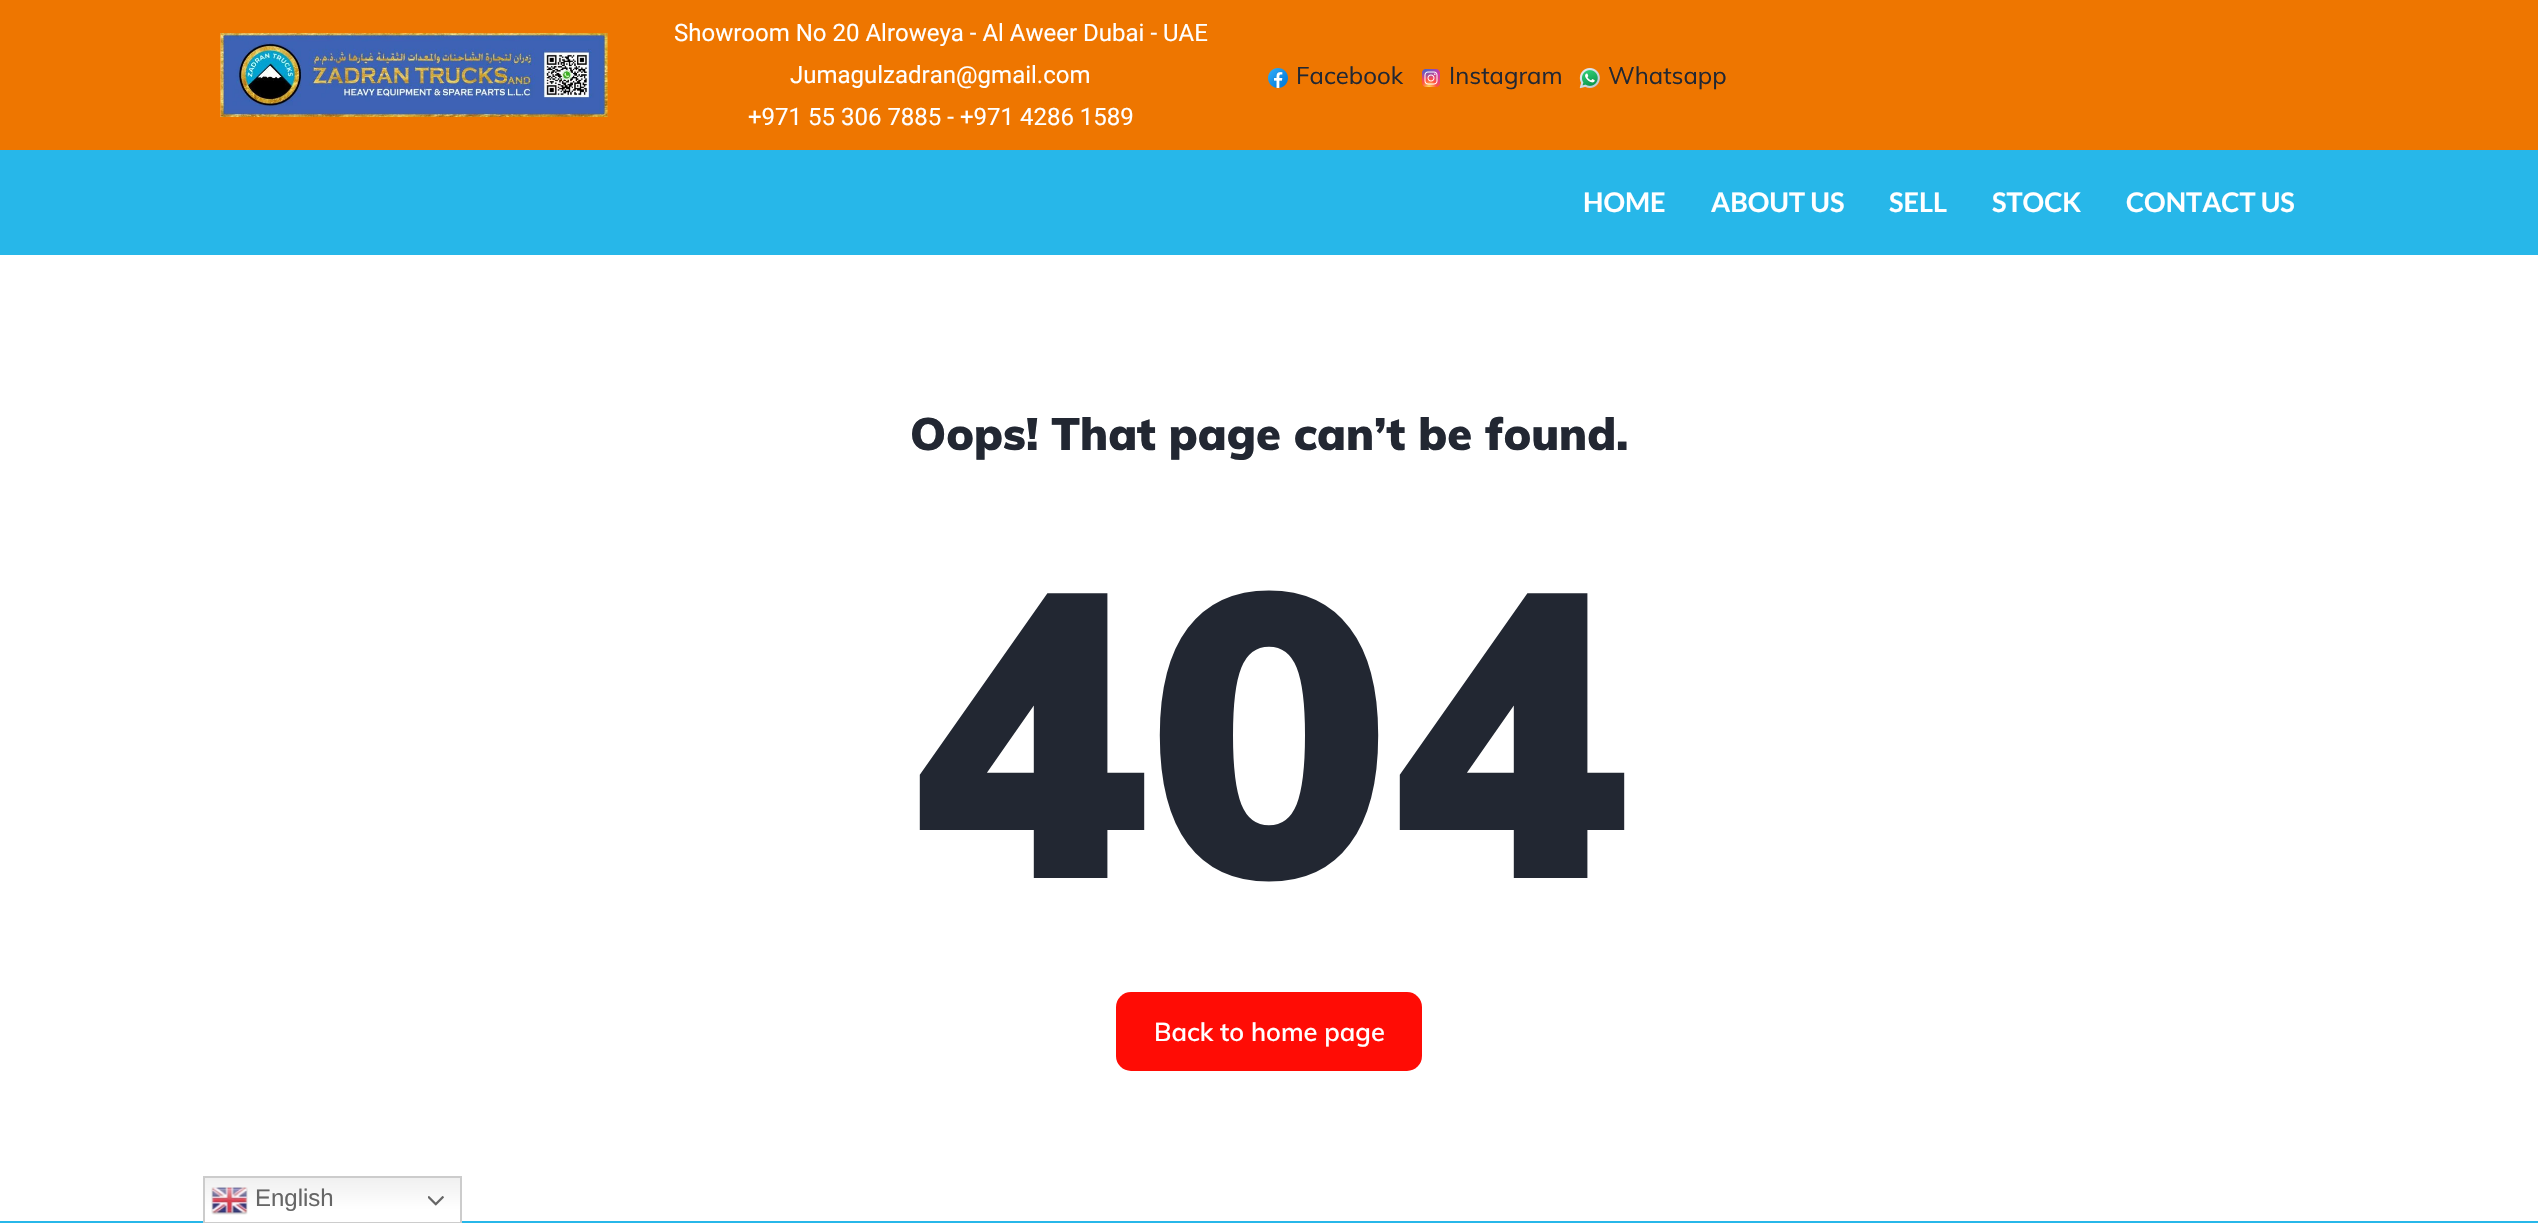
void draw(SkCanvas* canvas) {
	SkPaint paint;
	paint.setAntiAlias(true);
	canvas->clear(0xffffffff);
	paint.setColor(0xffee7600);
	canvas->drawRect(SkRect::MakeXYWH(0, 0, 2538, 150), paint);
	canvas->drawImageRect(SkImages::DeferredFromEncodedData(SkData::MakeFromFileName("img1.png")), SkRect::MakeXYWH(220, 33, 388, 84), SkSamplingOptions());
	SkFont f1(fontMgr->matchFamilyStyle("Roboto", SkFontStyle::Normal()), 24);
	f1.setSubpixel(true);
	paint.setColor(0xffffffff);
	canvas->drawString("Showroom No 20 Alroweya - Al Aweer Dubai - UAE", 674, 41, f1, paint);
	canvas->drawString("Jumagulzadran@gmail.com", 790, 83, f1, paint);
	canvas->drawString("+971 55 306 7885 - +971 4286 1589", 748, 125, f1, paint);
	canvas->drawImageRect(SkImages::DeferredFromEncodedData(SkData::MakeFromFileName("img2.png")), SkRect::MakeXYWH(1268, 68, 20, 20), SkSamplingOptions());
	SkFont f2(fontMgr->matchFamilyStyle("Muli", SkFontStyle::Normal()), 24);
	f2.setSubpixel(true);
	paint.setColor(0xff222732);
	canvas->drawString("Facebook", 1296, 84, f2, paint);
	canvas->drawImageRect(SkImages::DeferredFromEncodedData(SkData::MakeFromFileName("img3.png")), SkRect::MakeXYWH(1422, 69, 18, 18), SkSamplingOptions());
	canvas->drawString("Instagram", 1449, 84, f2, paint);
	canvas->drawImageRect(SkImages::DeferredFromEncodedData(SkData::MakeFromFileName("img4.png")), SkRect::MakeXYWH(1579, 68, 21, 21), SkSamplingOptions());
	canvas->drawString("Whatsapp", 1608, 84, f2, paint);
	paint.setColor(0xff27b7e9);
	canvas->drawRect(SkRect::MakeXYWH(0, 150, 2538, 105), paint);
	SkFont f3(fontMgr->matchFamilyStyle("Lato", SkFontStyle::Bold()), 27);
	f3.setSubpixel(true);
	paint.setColor(0xffffffff);
	canvas->drawString("HOME", 1583, 212, f3, paint);
	canvas->drawString("ABOUT US", 1711, 212, f3, paint);
	canvas->drawString("SELL", 1889, 212, f3, paint);
	canvas->drawString("STOCK", 1992, 212, f3, paint);
	canvas->drawString("CONTACT US", 2126, 212, f3, paint);
	SkFont f4(fontMgr->matchFamilyStyle("Muli", SkFontStyle(900, SkFontStyle::kNormal_Width, SkFontStyle::kUpright_Slant)), 45);
	f4.setSubpixel(true);
	paint.setColor(0xff222732);
	canvas->drawString("Oops! That page can’t be found.", 910, 450, f4, paint);
	SkFont f5(fontMgr->matchFamilyStyle("Muli", SkFontStyle(900, SkFontStyle::kNormal_Width, SkFontStyle::kUpright_Slant)), 400);
	f5.setSubpixel(true);
	canvas->drawString("404", 909, 878, f5, paint);
	paint.setColor(0xffff0c05);
	canvas->drawRoundRect(SkRect::MakeXYWH(1116, 992, 306, 79), 15, 15, paint);
	SkFont f6(fontMgr->matchFamilyStyle("Muli", SkFontStyle(600, SkFontStyle::kNormal_Width, SkFontStyle::kUpright_Slant)), 25.5);
	f6.setSubpixel(true);
	paint.setColor(0xffffffff);
	canvas->drawString("Back to home page", 1154, 1041, f6, paint);
	paint.setColor(0xff27b7e9);
	canvas->drawRect(SkRect::MakeXYWH(0, 1221, 2538, 2), paint);
	{
		const SkColor colors[] = {0xffefefef, 0xffffffff};
		const float stops[] = {0, 0.7};
		const SkPoint ends[] = {{332, 1176}, {332, 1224}};
		paint.setShader(SkGradientShader::MakeLinear(ends, colors, stops, 2, SkTileMode::kClamp));
		paint.setAlpha(255);
	}
	canvas->drawRect(SkRect::MakeXYWH(205, 1178, 255, 44), paint);
	paint.setStroke(true);
	paint.setStrokeWidth(2);
	paint.setShader(nullptr);
	paint.setColor(0xffcccccc);
	canvas->drawRect(SkRect::MakeXYWH(204, 1177, 257, 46), paint);
	canvas->drawImageRect(SkImages::DeferredFromEncodedData(SkData::MakeFromFileName("img5.png")), SkRect::MakeXYWH(211, 1187, 37, 28), SkSamplingOptions());
	SkFont f7(fontMgr->matchFamilyStyle("Liberation Sans", SkFontStyle::Normal()), 24);
	f7.setSubpixel(true);
	paint.setStroke(false);
	paint.setColor(0xff666666);
	canvas->drawString("English", 255, 1206, f7, paint);
	canvas->drawImageRect(SkImages::DeferredFromEncodedData(SkData::MakeFromFileName("img6.png")), SkRect::MakeXYWH(428, 1196, 16, 10), SkSamplingOptions());
}
